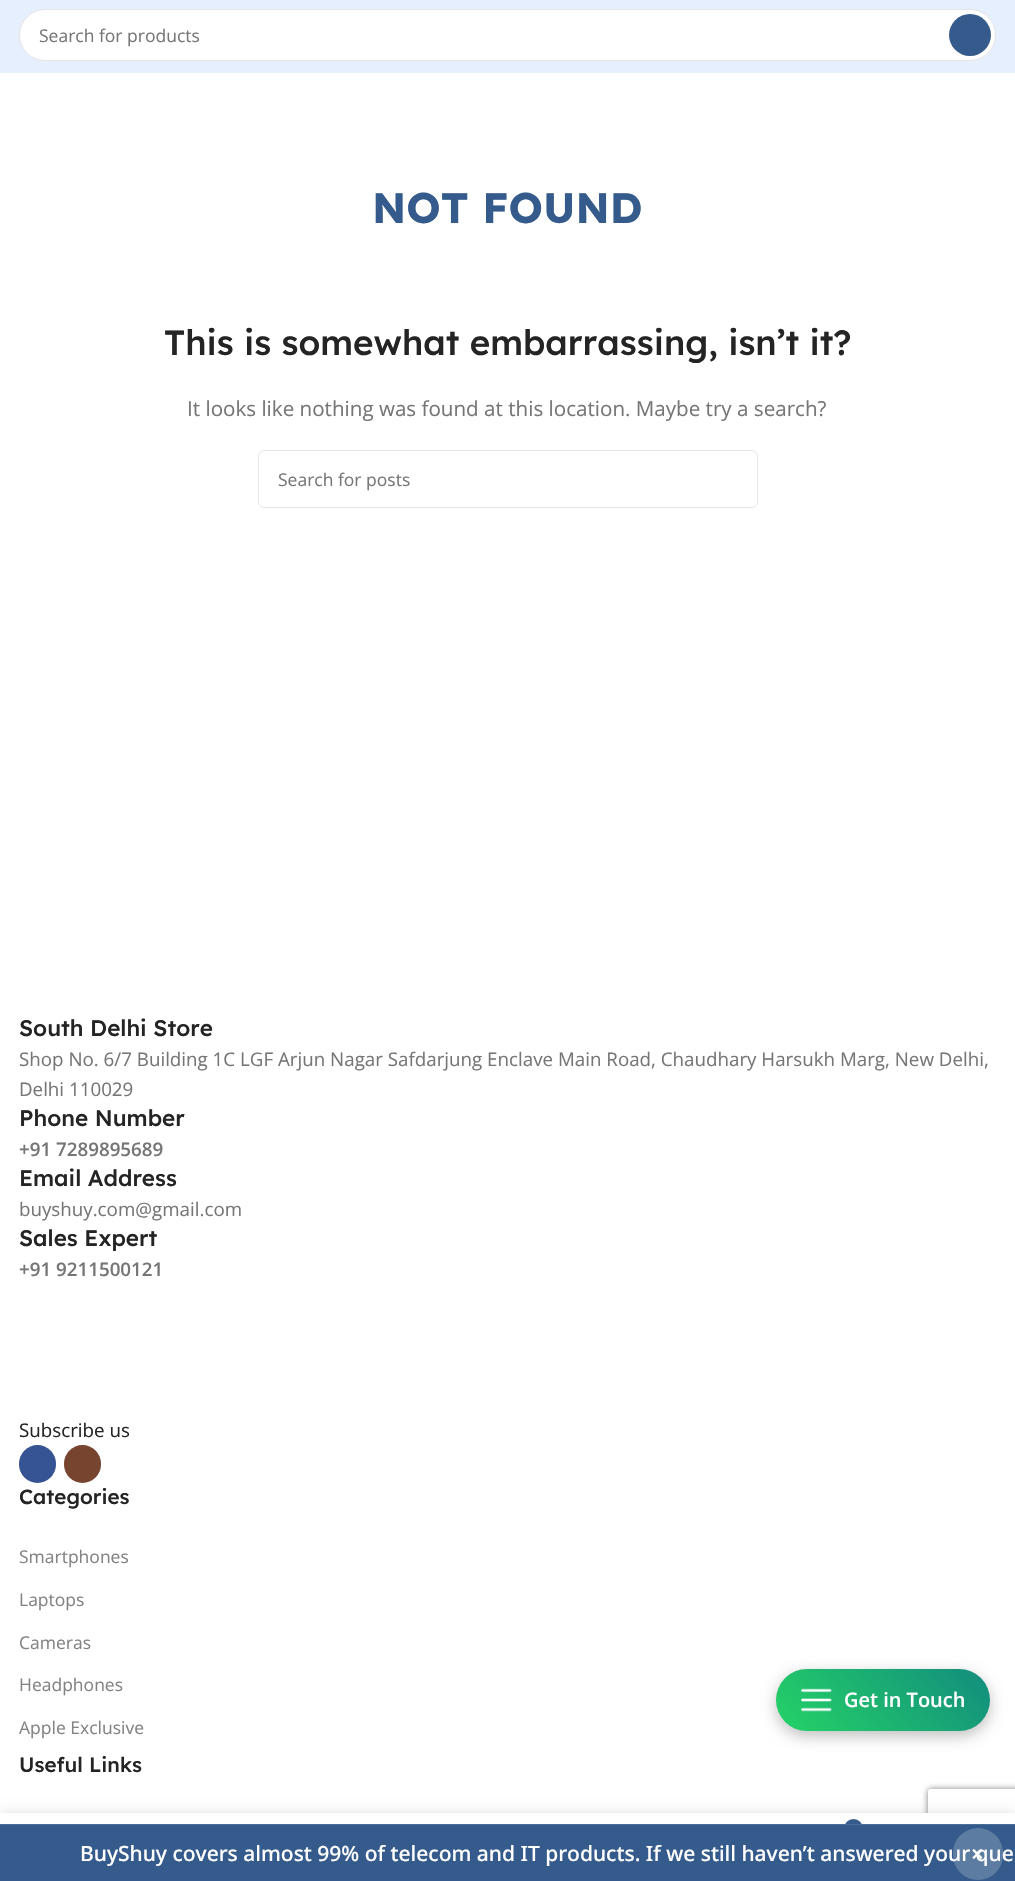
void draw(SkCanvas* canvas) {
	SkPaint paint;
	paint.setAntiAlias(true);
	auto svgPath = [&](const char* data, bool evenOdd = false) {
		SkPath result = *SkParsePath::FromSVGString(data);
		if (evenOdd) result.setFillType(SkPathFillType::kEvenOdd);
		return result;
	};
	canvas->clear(0xffffffff);
	paint.setColor(0xffe6effd);
	canvas->drawRect(SkRect::MakeXYWH(0, 0, 1015, 73), paint);
	paint.setColor(0xffffffff);
	canvas->drawRoundRect(SkRect::MakeXYWH(19, 9, 977, 52), 26, 26, paint);
	paint.setStroke(true);
	paint.setStrokeWidth(1);
	paint.setColor(0x1a000000);
	canvas->drawRoundRect(SkRect::MakeXYWH(19.5, 9.5, 976, 51), 25.5, 25.5, paint);
	SkFont f1(fontMgr->matchFamilyStyle("Open Sans", SkFontStyle::Normal()), 17.5);
	f1.setSubpixel(true);
	paint.setStroke(false);
	paint.setColor(0xff767676);
	canvas->drawString("Search for products", 39, 42, f1, paint);
	paint.setColor(0xff345b8b);
	canvas->drawCircle(970, 35, 21, paint);
	SkFont f2(fontMgr->matchFamilyStyle("Lexend Deca", SkFontStyle::Bold()), 42.5);
	f2.setSubpixel(true);
	canvas->drawString("NOT FOUND", 372, 223, f2, paint);
	SkFont f3(fontMgr->matchFamilyStyle("Lexend Deca", SkFontStyle(500, SkFontStyle::kNormal_Width, SkFontStyle::kUpright_Slant)), 35);
	f3.setSubpixel(true);
	paint.setColor(0xff242424);
	canvas->drawString("This is somewhat embarrassing, isn’t it?", 164, 355, f3, paint);
	SkFont f4(fontMgr->matchFamilyStyle("Open Sans", SkFontStyle::Normal()), 20.6);
	f4.setSubpixel(true);
	paint.setColor(0xff767676);
	canvas->drawString("It looks like nothing was found at this location. Maybe try a search?", 187, 416, f4, paint);
	paint.setStroke(true);
	paint.setColor(0xffe6e6e6);
	canvas->drawRoundRect(SkRect::MakeXYWH(258.5, 450.5, 499, 57), 5.5, 5.5, paint);
	paint.setStroke(false);
	paint.setColor(0xff767676);
	canvas->drawString("Search for posts", 278, 486, f1, paint);
	SkFont f5(fontMgr->matchFamilyStyle("Lexend Deca", SkFontStyle(500, SkFontStyle::kNormal_Width, SkFontStyle::kUpright_Slant)), 22.5);
	f5.setSubpixel(true);
	paint.setColor(0xff242424);
	canvas->drawString("South Delhi Store", 19, 1036, f5, paint);
	SkFont f6(fontMgr->matchFamilyStyle("Open Sans", SkFontStyle::Normal()), 18.75);
	f6.setSubpixel(true);
	paint.setColor(0xff767676);
	canvas->drawString("Shop No. 6/7 Building 1C LGF Arjun Nagar Safdarjung Enclave Main Road, Chaudhary Harsukh Marg, New Delhi,", 19, 1066, f6, paint);
	canvas->drawString("Delhi 110029", 19, 1096, f6, paint);
	paint.setColor(0xff242424);
	canvas->drawString("Phone Number", 19, 1126, f5, paint);
	SkFont f7(fontMgr->matchFamilyStyle("Open Sans", SkFontStyle(600, SkFontStyle::kNormal_Width, SkFontStyle::kUpright_Slant)), 18.75);
	f7.setSubpixel(true);
	paint.setColor(0xff767676);
	canvas->drawString("+91 7289895689", 19, 1156, f7, paint);
	paint.setColor(0xff242424);
	canvas->drawString("Email Address", 19, 1186, f5, paint);
	paint.setColor(0xff767676);
	canvas->drawString("buyshuy.com@gmail.com", 19, 1216, f6, paint);
	paint.setColor(0xff242424);
	canvas->drawString("Sales Expert", 19, 1246, f5, paint);
	paint.setColor(0xff767676);
	canvas->drawString("+91 9211500121", 19, 1276, f7, paint);
	paint.setColor(0xff242424);
	canvas->drawString("Subscribe us", 19, 1437, f6, paint);
	paint.setColor(0xff365493);
	canvas->drawRoundRect(SkRect::MakeXYWH(19, 1445, 37, 38), 18.5, 18.5, paint);
	paint.setColor(0xff774430);
	canvas->drawRoundRect(SkRect::MakeXYWH(64, 1445, 37, 38), 18.5, 18.5, paint);
	SkFont f8(fontMgr->matchFamilyStyle("Lexend Deca", SkFontStyle(500, SkFontStyle::kNormal_Width, SkFontStyle::kUpright_Slant)), 20.6);
	f8.setSubpixel(true);
	paint.setColor(0xff242424);
	canvas->drawString("Categories", 19, 1504, f8, paint);
	paint.setColor(0xff838383);
	canvas->drawString("Smartphones", 19, 1563, f1, paint);
	canvas->drawString("Laptops", 19, 1606, f1, paint);
	canvas->drawString("Cameras", 19, 1649, f1, paint);
	canvas->drawString("Headphones", 19, 1691, f1, paint);
	canvas->drawString("Apple Exclusive", 19, 1734, f1, paint);
	paint.setColor(0xff242424);
	canvas->drawString("Useful Links", 19, 1772, f8, paint);
	paint.setColor(0x40000000);
	paint.setMaskFilter(SkMaskFilter::MakeBlur(kNormal_SkBlurStyle, 7.5));
	canvas->drawRoundRect(SkRect::MakeXYWH(776, 1674, 214, 62), 31, 31, paint);
	paint.setMaskFilter(nullptr);
	{
		const SkColor colors[] = {0xff25d366, 0xff128c7e};
		const float stops[] = {0, 1};
		const SkPoint ends[] = {{814, 1769}, {952, 1631}};
		paint.setShader(SkGradientShader::MakeLinear(ends, colors, stops, 2, SkTileMode::kClamp));
		paint.setAlpha(255);
	}
	canvas->drawRoundRect(SkRect::MakeXYWH(776, 1669, 214, 62), 31, 31, paint);
	canvas->drawImageRect(SkImages::DeferredFromEncodedData(SkData::MakeFromFileName("img1.png")), SkRect::MakeXYWH(801, 1688, 31, 24), SkSamplingOptions());
	SkFont f9(fontMgr->matchFamilyStyle("Open Sans", SkFontStyle(600, SkFontStyle::kNormal_Width, SkFontStyle::kUpright_Slant)), 20);
	f9.setSubpixel(true);
	paint.setShader(nullptr);
	paint.setColor(0xffffffff);
	canvas->drawString("Get in Touch", 844, 1707, f9, paint);
	canvas->save();
	canvas->clipPath(svgPath("M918 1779H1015V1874H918ZM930.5 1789H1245.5C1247 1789 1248 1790 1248 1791.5V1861.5C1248 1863 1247 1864 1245.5 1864H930.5C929 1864 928 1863 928 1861.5V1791.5C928 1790 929 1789 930.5 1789Z", true), true);
	paint.setColor(0xff808080);
	paint.setMaskFilter(SkMaskFilter::MakeBlur(kNormal_SkBlurStyle, 3));
	canvas->drawRoundRect(SkRect::MakeXYWH(928, 1789, 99, 75), 2.5, 2.5, paint);
	paint.setMaskFilter(nullptr);
	canvas->restore();
	paint.setColor(0x1f000000);
	paint.setMaskFilter(SkMaskFilter::MakeBlur(kNormal_SkBlurStyle, 5.5));
	canvas->drawRect(SkRect::MakeXYWH(0, 1813, 1015, 68), paint);
	paint.setMaskFilter(nullptr);
	paint.setColor(0xffffffff);
	canvas->drawRect(SkRect::MakeXYWH(0, 1813, 1015, 11), paint);
	paint.setColor(0xff345b8b);
	canvas->drawCircle(853.5, 1828.5, 9.5, paint);
	canvas->drawRect(SkRect::MakeXYWH(0, 1825, 1015, 56), paint);
	paint.setColor(0xff4c6f99);
	canvas->drawRect(SkRect::MakeXYWH(0, 1824, 1015, 1), paint);
	paint.setColor(0xff5d7ca2);
	canvas->drawRoundRect(SkRect::MakeXYWH(953, 1828, 50, 52), 25, 25, paint);
	SkFont f10(fontMgr->matchFamilyStyle("Noto Sans", SkFontStyle(600, SkFontStyle::kNormal_Width, SkFontStyle::kUpright_Slant)), 22.5);
	f10.setSubpixel(true);
	paint.setColor(0xffffffff);
	canvas->drawString("×", 971, 1862, f10, paint);
	SkFont f11(fontMgr->matchFamilyStyle("Noto Sans", SkFontStyle(500, SkFontStyle::kNormal_Width, SkFontStyle::kUpright_Slant)), 21);
	f11.setSubpixel(true);
	canvas->drawString("BuyShuy covers almost 99% of telecom and IT products. If we still haven’t answered your que", 80, 1861, f11, paint);
}
